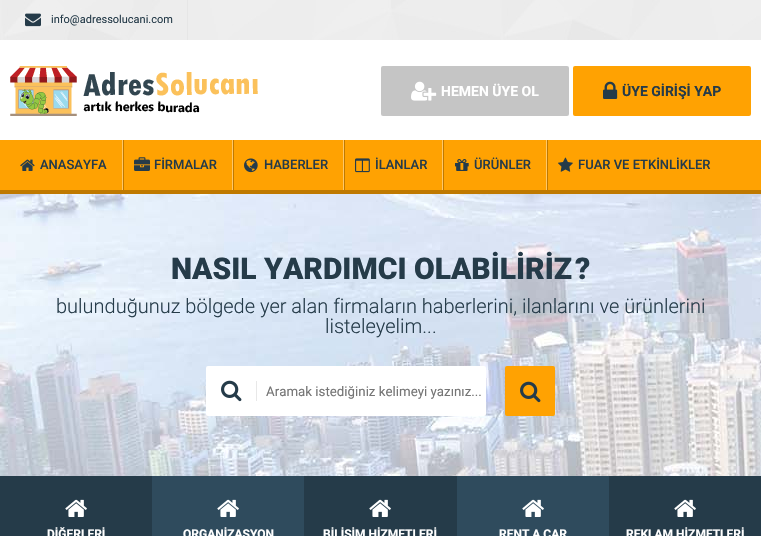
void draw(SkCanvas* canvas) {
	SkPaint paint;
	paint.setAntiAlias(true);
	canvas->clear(0xffffffff);
	canvas->drawImageRect(SkImages::DeferredFromEncodedData(SkData::MakeFromFileName("img1.png")), SkRect::MakeXYWH(0, 0, 761, 40), SkSamplingOptions());
	paint.setColor(0xffe6e6e6);
	canvas->drawRect(SkRect::MakeXYWH(187, 0, 1, 40), paint);
	canvas->drawImageRect(SkImages::DeferredFromEncodedData(SkData::MakeFromFileName("img2.png")), SkRect::MakeXYWH(25, 13, 16, 14), SkSamplingOptions());
	SkFont f1(fontMgr->matchFamilyStyle("Roboto", SkFontStyle::Normal()), 11);
	f1.setSubpixel(true);
	paint.setColor(0xff253b49);
	canvas->drawString("info@adressolucani.com", 51, 23, f1, paint);
	canvas->drawImageRect(SkImages::DeferredFromEncodedData(SkData::MakeFromFileName("img3.png")), SkRect::MakeXYWH(10, 66, 248, 50), SkSamplingOptions());
	paint.setColor(0xffc5c5c5);
	canvas->drawRoundRect(SkRect::MakeXYWH(381, 66, 188, 50), 2, 2, paint);
	canvas->drawImageRect(SkImages::DeferredFromEncodedData(SkData::MakeFromFileName("img4.png")), SkRect::MakeXYWH(411, 81, 26, 20), SkSamplingOptions());
	SkFont f2(fontMgr->matchFamilyStyle("Roboto", SkFontStyle::Bold()), 14);
	f2.setSubpixel(true);
	paint.setColor(0xffffffff);
	canvas->drawString("HEMEN ÜYE OL", 441, 96, f2, paint);
	paint.setColor(0xffffa202);
	canvas->drawRoundRect(SkRect::MakeXYWH(573, 66, 178, 50), 2, 2, paint);
	canvas->drawImageRect(SkImages::DeferredFromEncodedData(SkData::MakeFromFileName("img5.png")), SkRect::MakeXYWH(603, 81, 15, 18), SkSamplingOptions());
	paint.setColor(0xff253b49);
	canvas->drawString("ÜYE GİRİŞİ YAP", 622, 96, f2, paint);
	paint.setColor(0xffffa202);
	canvas->drawRect(SkRect::MakeXYWH(0, 140, 761, 50), paint);
	paint.setColor(0xffbf7900);
	canvas->drawRect(SkRect::MakeXYWH(0, 190, 761, 4), paint);
	paint.setColor(0xffffc768);
	canvas->drawRect(SkRect::MakeXYWH(122, 140, 1, 50), paint);
	canvas->drawImageRect(SkImages::DeferredFromEncodedData(SkData::MakeFromFileName("img6.png")), SkRect::MakeXYWH(20, 159, 15, 12), SkSamplingOptions());
	SkFont f3(fontMgr->matchFamilyStyle("Roboto", SkFontStyle(500, SkFontStyle::kNormal_Width, SkFontStyle::kUpright_Slant)), 13);
	f3.setSubpixel(true);
	paint.setColor(0xff253b49);
	canvas->drawString("ANASAYFA", 40, 169, f3, paint);
	paint.setColor(0xffffc768);
	canvas->drawRect(SkRect::MakeXYWH(232, 140, 1, 50), paint);
	paint.setColor(0xffbf7900);
	canvas->drawRect(SkRect::MakeXYWH(123, 140, 1, 50), paint);
	canvas->drawImageRect(SkImages::DeferredFromEncodedData(SkData::MakeFromFileName("img7.png")), SkRect::MakeXYWH(134, 157, 16, 14), SkSamplingOptions());
	paint.setColor(0xff253b49);
	canvas->drawString("FİRMALAR", 154, 169, f3, paint);
	paint.setColor(0xffffc768);
	canvas->drawRect(SkRect::MakeXYWH(343, 140, 1, 50), paint);
	paint.setColor(0xffbf7900);
	canvas->drawRect(SkRect::MakeXYWH(233, 140, 1, 50), paint);
	canvas->drawImageRect(SkImages::DeferredFromEncodedData(SkData::MakeFromFileName("img8.png")), SkRect::MakeXYWH(244, 158, 14, 15), SkSamplingOptions());
	paint.setColor(0xff253b49);
	canvas->drawString("HABERLER", 264, 169, f3, paint);
	paint.setColor(0xffffc768);
	canvas->drawRect(SkRect::MakeXYWH(442, 140, 1, 50), paint);
	paint.setColor(0xffbf7900);
	canvas->drawRect(SkRect::MakeXYWH(344, 140, 1, 50), paint);
	canvas->drawImageRect(SkImages::DeferredFromEncodedData(SkData::MakeFromFileName("img9.png")), SkRect::MakeXYWH(355, 158, 15, 15), SkSamplingOptions());
	paint.setColor(0xff253b49);
	canvas->drawString("İLANLAR", 375, 169, f3, paint);
	paint.setColor(0xffffc768);
	canvas->drawRect(SkRect::MakeXYWH(546, 140, 1, 50), paint);
	paint.setColor(0xffbf7900);
	canvas->drawRect(SkRect::MakeXYWH(443, 140, 1, 50), paint);
	canvas->drawImageRect(SkImages::DeferredFromEncodedData(SkData::MakeFromFileName("img10.png")), SkRect::MakeXYWH(455, 159, 14, 12), SkSamplingOptions());
	paint.setColor(0xff253b49);
	canvas->drawString("ÜRÜNLER", 474, 169, f3, paint);
	paint.setColor(0xffbf7900);
	canvas->drawRect(SkRect::MakeXYWH(547, 140, 1, 50), paint);
	canvas->drawImageRect(SkImages::DeferredFromEncodedData(SkData::MakeFromFileName("img11.png")), SkRect::MakeXYWH(558, 157, 15, 15), SkSamplingOptions());
	paint.setColor(0xff253b49);
	canvas->drawString("FUAR VE ETKİNLİKLER", 578, 169, f3, paint);
	canvas->drawImageRect(SkImages::DeferredFromEncodedData(SkData::MakeFromFileName("img12.png")), SkRect::MakeXYWH(0, 194, 761, 282), SkSamplingOptions());
	SkFont f4(fontMgr->matchFamilyStyle("Roboto", SkFontStyle(900, SkFontStyle::kNormal_Width, SkFontStyle::kUpright_Slant)), 30);
	f4.setSubpixel(true);
	canvas->drawString("NASIL YARDIMCI OLABİLİRİZ", 171, 279, f4, paint);
	canvas->drawString("?", 575, 279, f4, paint);
	SkFont f5(fontMgr->matchFamilyStyle("Roboto", SkFontStyle(300, SkFontStyle::kNormal_Width, SkFontStyle::kUpright_Slant)), 20);
	f5.setSubpixel(true);
	canvas->drawString("bulunduğunuz bölgede yer alan firmaların haberlerini, ilanlarını ve ürünlerini", 56, 313, f5, paint);
	canvas->drawString("listeleyelim...", 325, 333, f5, paint);
	paint.setColor(0xffffffff);
	canvas->drawRoundRect(SkRect::MakeXYWH(206, 366, 280, 50), 2, 2, paint);
	paint.setColor(0xffe8e8e8);
	canvas->drawRect(SkRect::MakeXYWH(256, 381, 1, 20), paint);
	canvas->drawImageRect(SkImages::DeferredFromEncodedData(SkData::MakeFromFileName("img13.png")), SkRect::MakeXYWH(221, 380, 21, 22), SkSamplingOptions());
	SkFont f6(fontMgr->matchFamilyStyle("Roboto", SkFontStyle::Normal()), 13.3);
	f6.setSubpixel(true);
	paint.setColor(0xff757575);
	canvas->drawString("Aramak istediğiniz kelimeyi yazınız...", 266, 396, f6, paint);
	paint.setColor(0xffffa202);
	canvas->drawRoundRect(SkRect::MakeXYWH(505, 366, 50, 50), 2, 2, paint);
	canvas->drawImageRect(SkImages::DeferredFromEncodedData(SkData::MakeFromFileName("img14.png")), SkRect::MakeXYWH(520, 381, 21, 22), SkSamplingOptions());
	paint.setColor(0xff253b49);
	canvas->drawRect(SkRect::MakeXYWH(0, 476, 152, 60), paint);
	canvas->drawImageRect(SkImages::DeferredFromEncodedData(SkData::MakeFromFileName("img15.png")), SkRect::MakeXYWH(65, 499, 22, 18), SkSamplingOptions());
	SkFont f7(fontMgr->matchFamilyStyle("Roboto", SkFontStyle::Bold()), 12);
	f7.setSubpixel(true);
	paint.setColor(0xffffffff);
	canvas->drawString("DİĞERLERİ", 47, 538, f7, paint);
	paint.setColor(0xff2f4b5d);
	canvas->drawRect(SkRect::MakeXYWH(152, 476, 152, 60), paint);
	canvas->drawImageRect(SkImages::DeferredFromEncodedData(SkData::MakeFromFileName("img16.png")), SkRect::MakeXYWH(217, 499, 22, 18), SkSamplingOptions());
	paint.setColor(0xffffffff);
	canvas->drawString("ORGANİZASYON", 183, 538, f7, paint);
	paint.setColor(0xff253b49);
	canvas->drawRect(SkRect::MakeXYWH(304, 476, 153, 60), paint);
	canvas->drawImageRect(SkImages::DeferredFromEncodedData(SkData::MakeFromFileName("img15.png")), SkRect::MakeXYWH(369, 499, 22, 18), SkSamplingOptions());
	paint.setColor(0xffffffff);
	canvas->drawString("BİLİŞİM HİZMETLERİ", 323, 538, f7, paint);
	paint.setColor(0xff2f4b5d);
	canvas->drawRect(SkRect::MakeXYWH(457, 476, 152, 60), paint);
	canvas->drawImageRect(SkImages::DeferredFromEncodedData(SkData::MakeFromFileName("img16.png")), SkRect::MakeXYWH(522, 499, 22, 18), SkSamplingOptions());
	paint.setColor(0xffffffff);
	canvas->drawString("RENT A CAR", 499, 538, f7, paint);
	paint.setColor(0xff253b49);
	canvas->drawRect(SkRect::MakeXYWH(609, 476, 152, 60), paint);
	canvas->drawImageRect(SkImages::DeferredFromEncodedData(SkData::MakeFromFileName("img15.png")), SkRect::MakeXYWH(674, 499, 22, 18), SkSamplingOptions());
	paint.setColor(0xffffffff);
	canvas->drawString("REKLAM HİZMETLERİ", 626, 538, f7, paint);
}
